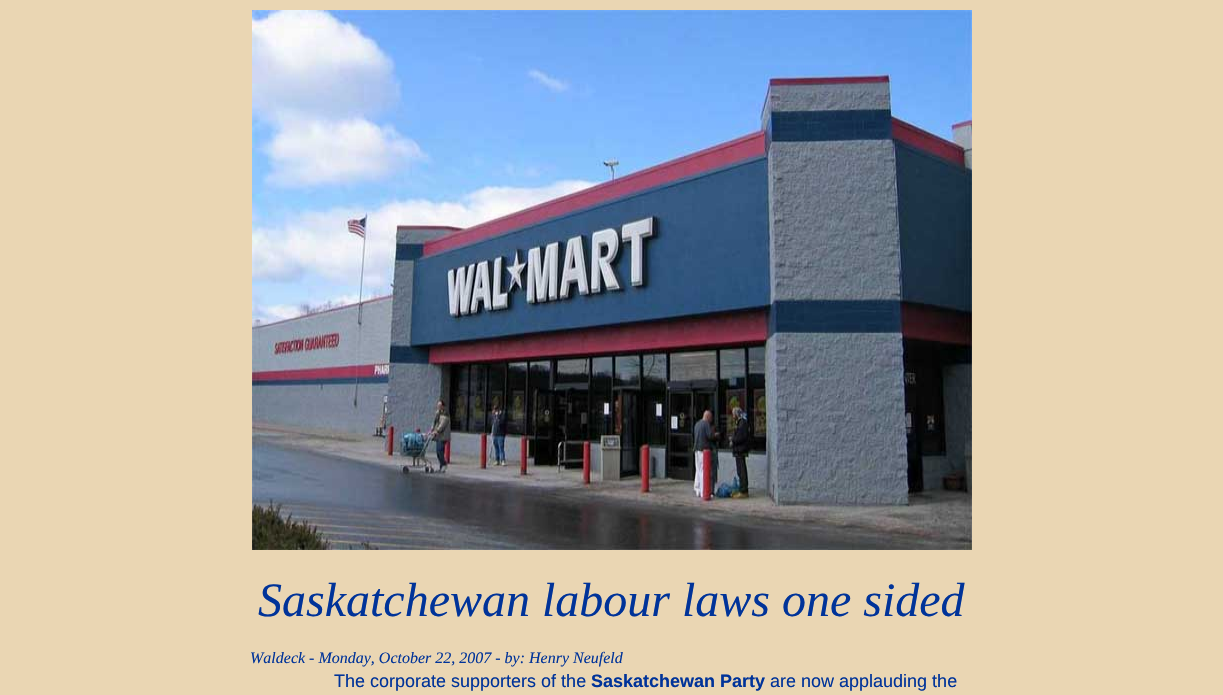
void draw(SkCanvas* canvas) {
	SkPaint paint;
	paint.setAntiAlias(true);
	canvas->clear(0xffead6b3);
	canvas->drawImageRect(SkImages::DeferredFromEncodedData(SkData::MakeFromFileName("img1.png")), SkRect::MakeXYWH(252, 10, 720, 540), SkSamplingOptions());
	SkFont f1(fontMgr->matchFamilyStyle("Liberation Serif", SkFontStyle::Italic()), 48);
	f1.setSubpixel(true);
	paint.setColor(0xff003399);
	canvas->drawString("Saskatchewan labour laws one sided", 258, 616, f1, paint);
	SkFont f2(fontMgr->matchFamilyStyle("Liberation Serif", SkFontStyle::Italic()), 16);
	f2.setSubpixel(true);
	canvas->drawString("Waldeck - Monday, October 22, 2007 - by: Henry Neufeld", 250, 663, f2, paint);
	SkFont f3(fontMgr->matchFamilyStyle("Liberation Sans", SkFontStyle::Normal()), 18);
	f3.setSubpixel(true);
	canvas->drawString("The corporate supporters of the", 334, 687, f3, paint);
	SkFont f4(fontMgr->matchFamilyStyle("Liberation Sans", SkFontStyle::Bold()), 18);
	f4.setSubpixel(true);
	canvas->drawString("Saskatchewan Party", 591, 687, f4, paint);
	canvas->drawString("are now applauding the", 770, 687, f3, paint);
}
